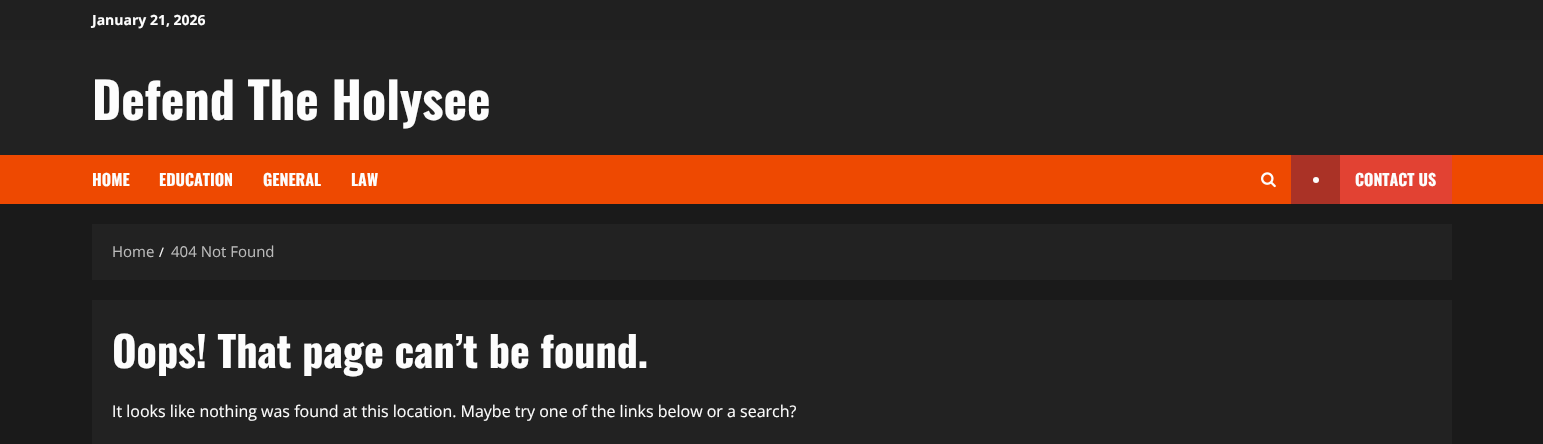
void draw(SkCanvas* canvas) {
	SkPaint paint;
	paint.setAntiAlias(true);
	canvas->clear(0xff1a1a1a);
	paint.setColor(0xff202020);
	canvas->drawRect(SkRect::MakeXYWH(0, 0, 1543, 40), paint);
	SkFont f1(fontMgr->matchFamilyStyle("Open Sans", SkFontStyle::Bold()), 14);
	f1.setSubpixel(true);
	paint.setColor(0xfffdfdfd);
	canvas->drawString("January 21, 2026", 92, 25, f1, paint);
	paint.setColor(0xff222222);
	canvas->drawRect(SkRect::MakeXYWH(0, 40, 1543, 115), paint);
	SkFont f2(fontMgr->matchFamilyStyle("Oswald", SkFontStyle::Bold()), 50);
	f2.setSubpixel(true);
	paint.setColor(0xfffdfdfd);
	canvas->drawString("Defend The Holysee", 92, 120, f2, paint);
	paint.setColor(0xffee4901);
	canvas->drawRect(SkRect::MakeXYWH(0, 155, 1543, 49), paint);
	SkFont f3(fontMgr->matchFamilyStyle("Oswald", SkFontStyle::Bold()), 16);
	f3.setSubpixel(true);
	paint.setColor(0xfffdfdfd);
	canvas->drawString("HOME", 92, 186, f3, paint);
	canvas->drawString("EDUCATION", 159, 186, f3, paint);
	canvas->drawString("GENERAL", 263, 186, f3, paint);
	canvas->drawString("LAW", 351, 186, f3, paint);
	canvas->drawImageRect(SkImages::DeferredFromEncodedData(SkData::MakeFromFileName("img1.png")), SkRect::MakeXYWH(1261, 172, 15, 16), SkSamplingOptions());
	paint.setColor(0xffe24233);
	canvas->drawRect(SkRect::MakeXYWH(1340, 155, 112, 49), paint);
	paint.setColor(0xffaa3226);
	canvas->drawRect(SkRect::MakeXYWH(1291, 155, 49, 49), paint);
	paint.setColor(0xfffdfdfd);
	canvas->drawCircle(1316, 180, 3, paint);
	canvas->drawString("CONTACT US", 1355, 186, f3, paint);
	paint.setColor(0xff222222);
	canvas->drawRect(SkRect::MakeXYWH(92, 224, 1360, 56), paint);
	SkFont f4(fontMgr->matchFamilyStyle("Open Sans", SkFontStyle::Normal()), 15);
	f4.setSubpixel(true);
	paint.setColor(0xffbbbbbb);
	canvas->drawString("Home", 112, 257, f4, paint);
	SkFont f5(fontMgr->matchFamilyStyle("Open Sans", SkFontStyle::Normal()), 13);
	f5.setSubpixel(true);
	paint.setColor(0xfffdfdfd);
	canvas->drawString("/", 159, 257, f5, paint);
	paint.setColor(0xffbbbbbb);
	canvas->drawString("404 Not Found", 171, 257, f4, paint);
	paint.setColor(0xff222222);
	canvas->drawRect(SkRect::MakeXYWH(92, 300, 1360, 144), paint);
	SkFont f6(fontMgr->matchFamilyStyle("Oswald", SkFontStyle::Bold()), 42);
	f6.setSubpixel(true);
	paint.setColor(0xfffdfdfd);
	canvas->drawString("Oops! That page can’t be found.", 112, 368, f6, paint);
	SkFont f7(fontMgr->matchFamilyStyle("Open Sans", SkFontStyle::Normal()), 16);
	f7.setSubpixel(true);
	canvas->drawString("It looks like nothing was found at this location. Maybe try one of the links below or a search?", 112, 417, f7, paint);
}
